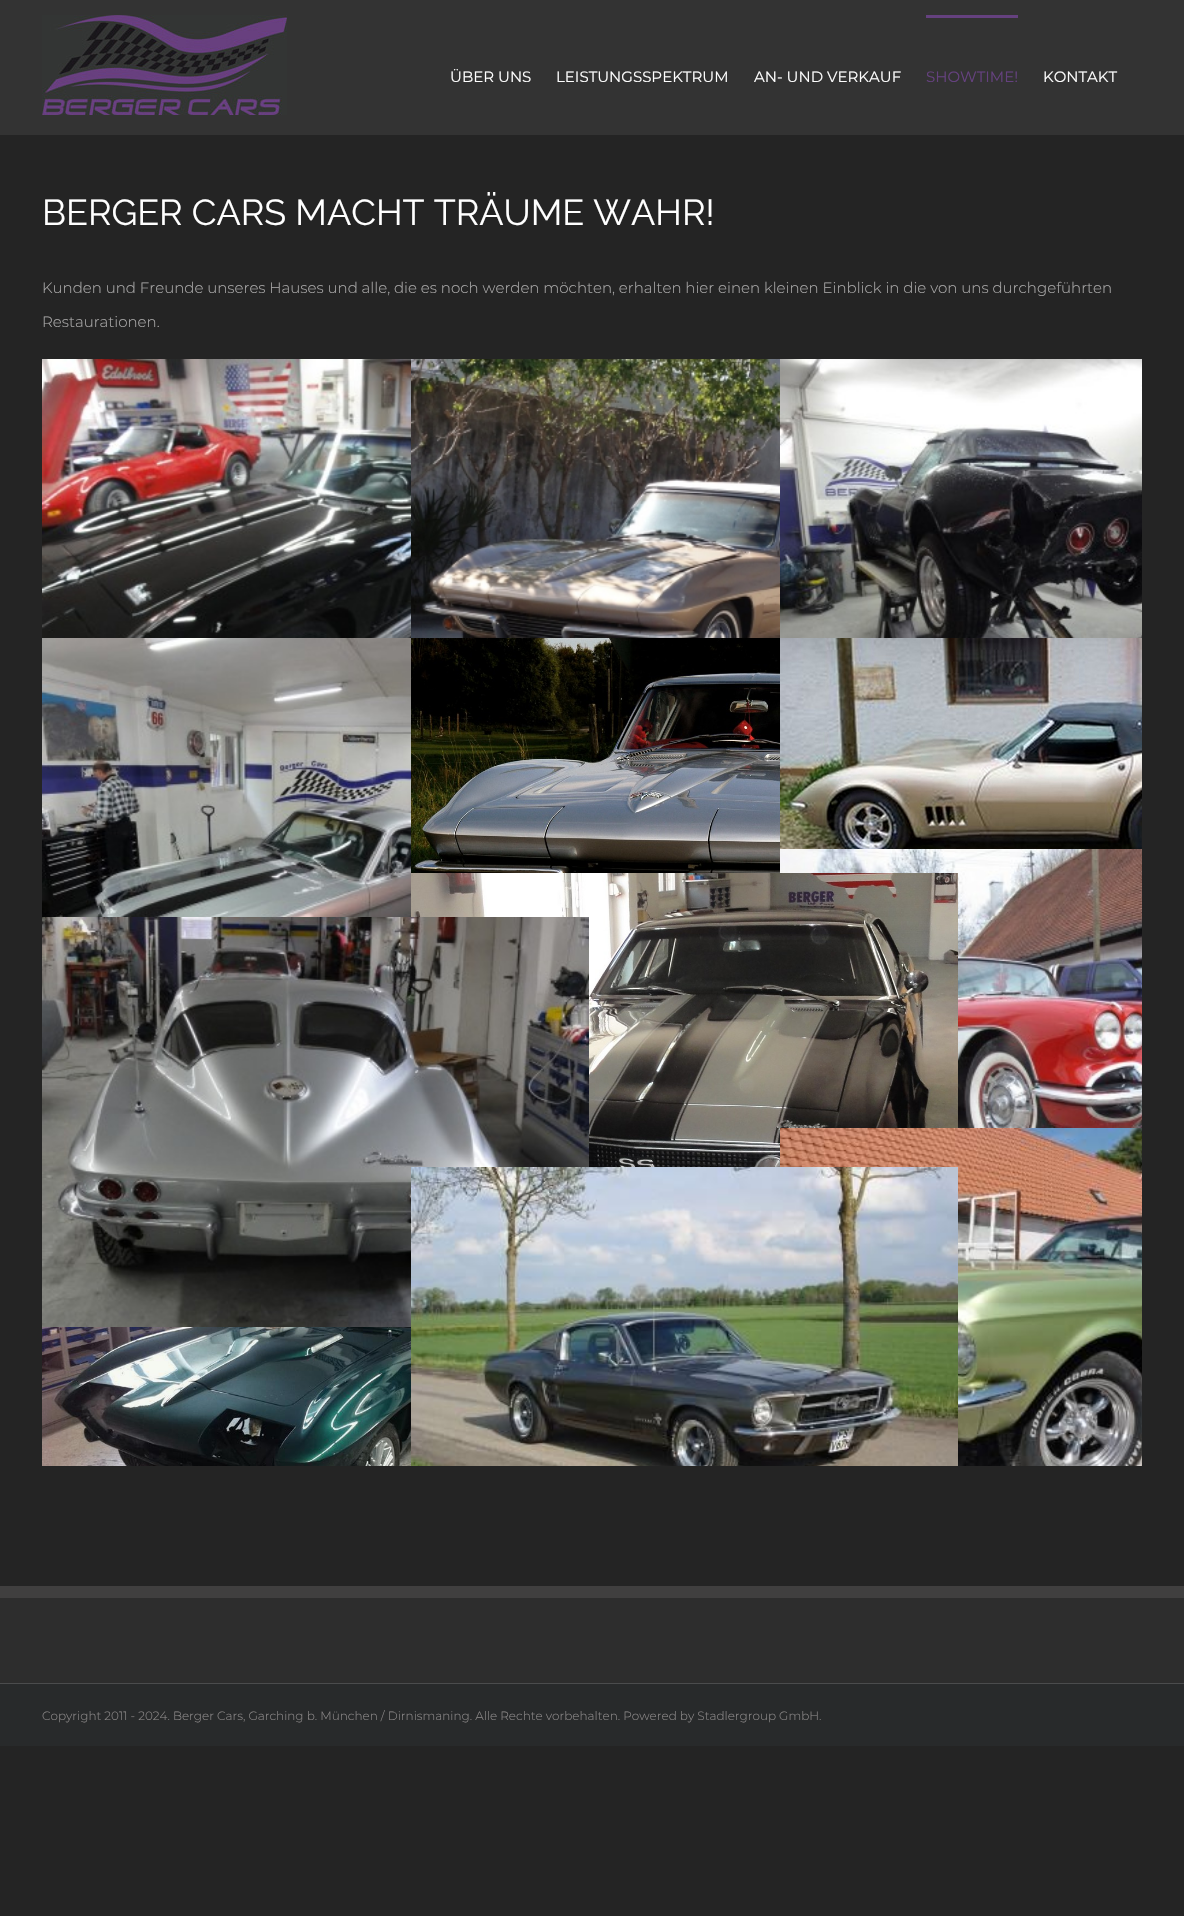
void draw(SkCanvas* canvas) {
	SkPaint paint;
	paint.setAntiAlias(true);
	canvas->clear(0xff242424);
	paint.setColor(0xff333333);
	canvas->drawRect(SkRect::MakeXYWH(0, 0, 1184, 135), paint);
	canvas->drawImageRect(SkImages::DeferredFromEncodedData(SkData::MakeFromFileName("img1.png")), SkRect::MakeXYWH(42, 15, 245, 100), SkSamplingOptions());
	SkFont f1(fontMgr->matchFamilyStyle("Montserrat", SkFontStyle::Normal()), 15);
	f1.setSubpixel(true);
	paint.setColor(0xffffffff);
	canvas->drawString("ÜBER UNS", 450, 82, f1, paint);
	canvas->drawString("LEISTUNGSSPEKTRUM", 556, 82, f1, paint);
	canvas->drawString("AN- UND VERKAUF", 754, 82, f1, paint);
	paint.setColor(0xff65417f);
	canvas->drawRect(SkRect::MakeXYWH(926, 15, 92, 3), paint);
	canvas->drawString("SHOWTIME!", 926, 82, f1, paint);
	paint.setColor(0xffffffff);
	canvas->drawString("KONTAKT", 1043, 82, f1, paint);
	SkFont f2(fontMgr->matchFamilyStyle("Raleway", SkFontStyle::Normal()), 36);
	f2.setSubpixel(true);
	canvas->drawString("BERGER CARS MACHT TRÄUME WAHR!", 42, 225, f2, paint);
	SkFont f3(fontMgr->matchFamilyStyle("Montserrat", SkFontStyle(300, SkFontStyle::kNormal_Width, SkFontStyle::kUpright_Slant)), 15);
	f3.setSubpixel(true);
	paint.setColor(0xffaaa9a9);
	canvas->drawString("Kunden und Freunde unseres Hauses und alle, die es noch werden möchten, erhalten hier einen kleinen Einblick in die von uns durchgeführten", 42, 293, f3, paint);
	canvas->drawString("Restaurationen.", 42, 327, f3, paint);
	canvas->drawImageRect(SkImages::DeferredFromEncodedData(SkData::MakeFromFileName("img2.png")), SkRect::MakeXYWH(42, 359, 369, 279), SkSamplingOptions());
	canvas->drawImageRect(SkImages::DeferredFromEncodedData(SkData::MakeFromFileName("img3.png")), SkRect::MakeXYWH(411, 359, 369, 279), SkSamplingOptions());
	canvas->drawImageRect(SkImages::DeferredFromEncodedData(SkData::MakeFromFileName("img4.png")), SkRect::MakeXYWH(780, 359, 362, 279), SkSamplingOptions());
	canvas->drawImageRect(SkImages::DeferredFromEncodedData(SkData::MakeFromFileName("img5.png")), SkRect::MakeXYWH(42, 638, 369, 279), SkSamplingOptions());
	canvas->drawImageRect(SkImages::DeferredFromEncodedData(SkData::MakeFromFileName("img6.png")), SkRect::MakeXYWH(411, 638, 369, 235), SkSamplingOptions());
	canvas->drawImageRect(SkImages::DeferredFromEncodedData(SkData::MakeFromFileName("img7.png")), SkRect::MakeXYWH(780, 638, 362, 211), SkSamplingOptions());
	canvas->drawImageRect(SkImages::DeferredFromEncodedData(SkData::MakeFromFileName("img10.png")), SkRect::MakeXYWH(780, 849, 362, 279), SkSamplingOptions());
	canvas->drawImageRect(SkImages::DeferredFromEncodedData(SkData::MakeFromFileName("img9.png")), SkRect::MakeXYWH(411, 873, 547, 294), SkSamplingOptions());
	canvas->drawImageRect(SkImages::DeferredFromEncodedData(SkData::MakeFromFileName("img8.png")), SkRect::MakeXYWH(42, 917, 547, 410), SkSamplingOptions());
	canvas->drawImageRect(SkImages::DeferredFromEncodedData(SkData::MakeFromFileName("img11.png")), SkRect::MakeXYWH(42, 1327, 369, 139), SkSamplingOptions());
	canvas->drawImageRect(SkImages::DeferredFromEncodedData(SkData::MakeFromFileName("img13.png")), SkRect::MakeXYWH(780, 1128, 362, 338), SkSamplingOptions());
	canvas->drawImageRect(SkImages::DeferredFromEncodedData(SkData::MakeFromFileName("img12.png")), SkRect::MakeXYWH(411, 1167, 547, 299), SkSamplingOptions());
	paint.setColor(0xff2d2d2d);
	canvas->drawRect(SkRect::MakeXYWH(0, 1598, 1184, 85), paint);
	paint.setColor(0xff403f3f);
	canvas->drawRect(SkRect::MakeXYWH(0, 1586, 1184, 12), paint);
	paint.setColor(0xff282a2b);
	canvas->drawRect(SkRect::MakeXYWH(0, 1684, 1184, 62), paint);
	paint.setColor(0xff4b4c4d);
	canvas->drawRect(SkRect::MakeXYWH(0, 1683, 1184, 1), paint);
	SkFont f4(fontMgr->matchFamilyStyle("Montserrat", SkFontStyle(300, SkFontStyle::kNormal_Width, SkFontStyle::kUpright_Slant)), 12);
	f4.setSubpixel(true);
	paint.setColor(0xff8c8989);
	canvas->drawString("Copyright 2011 - 2024. Berger Cars, Garching b. München / Dirnismaning. Alle Rechte vorbehalten. Powered by Stadlergroup GmbH.", 42, 1720, f4, paint);
}
